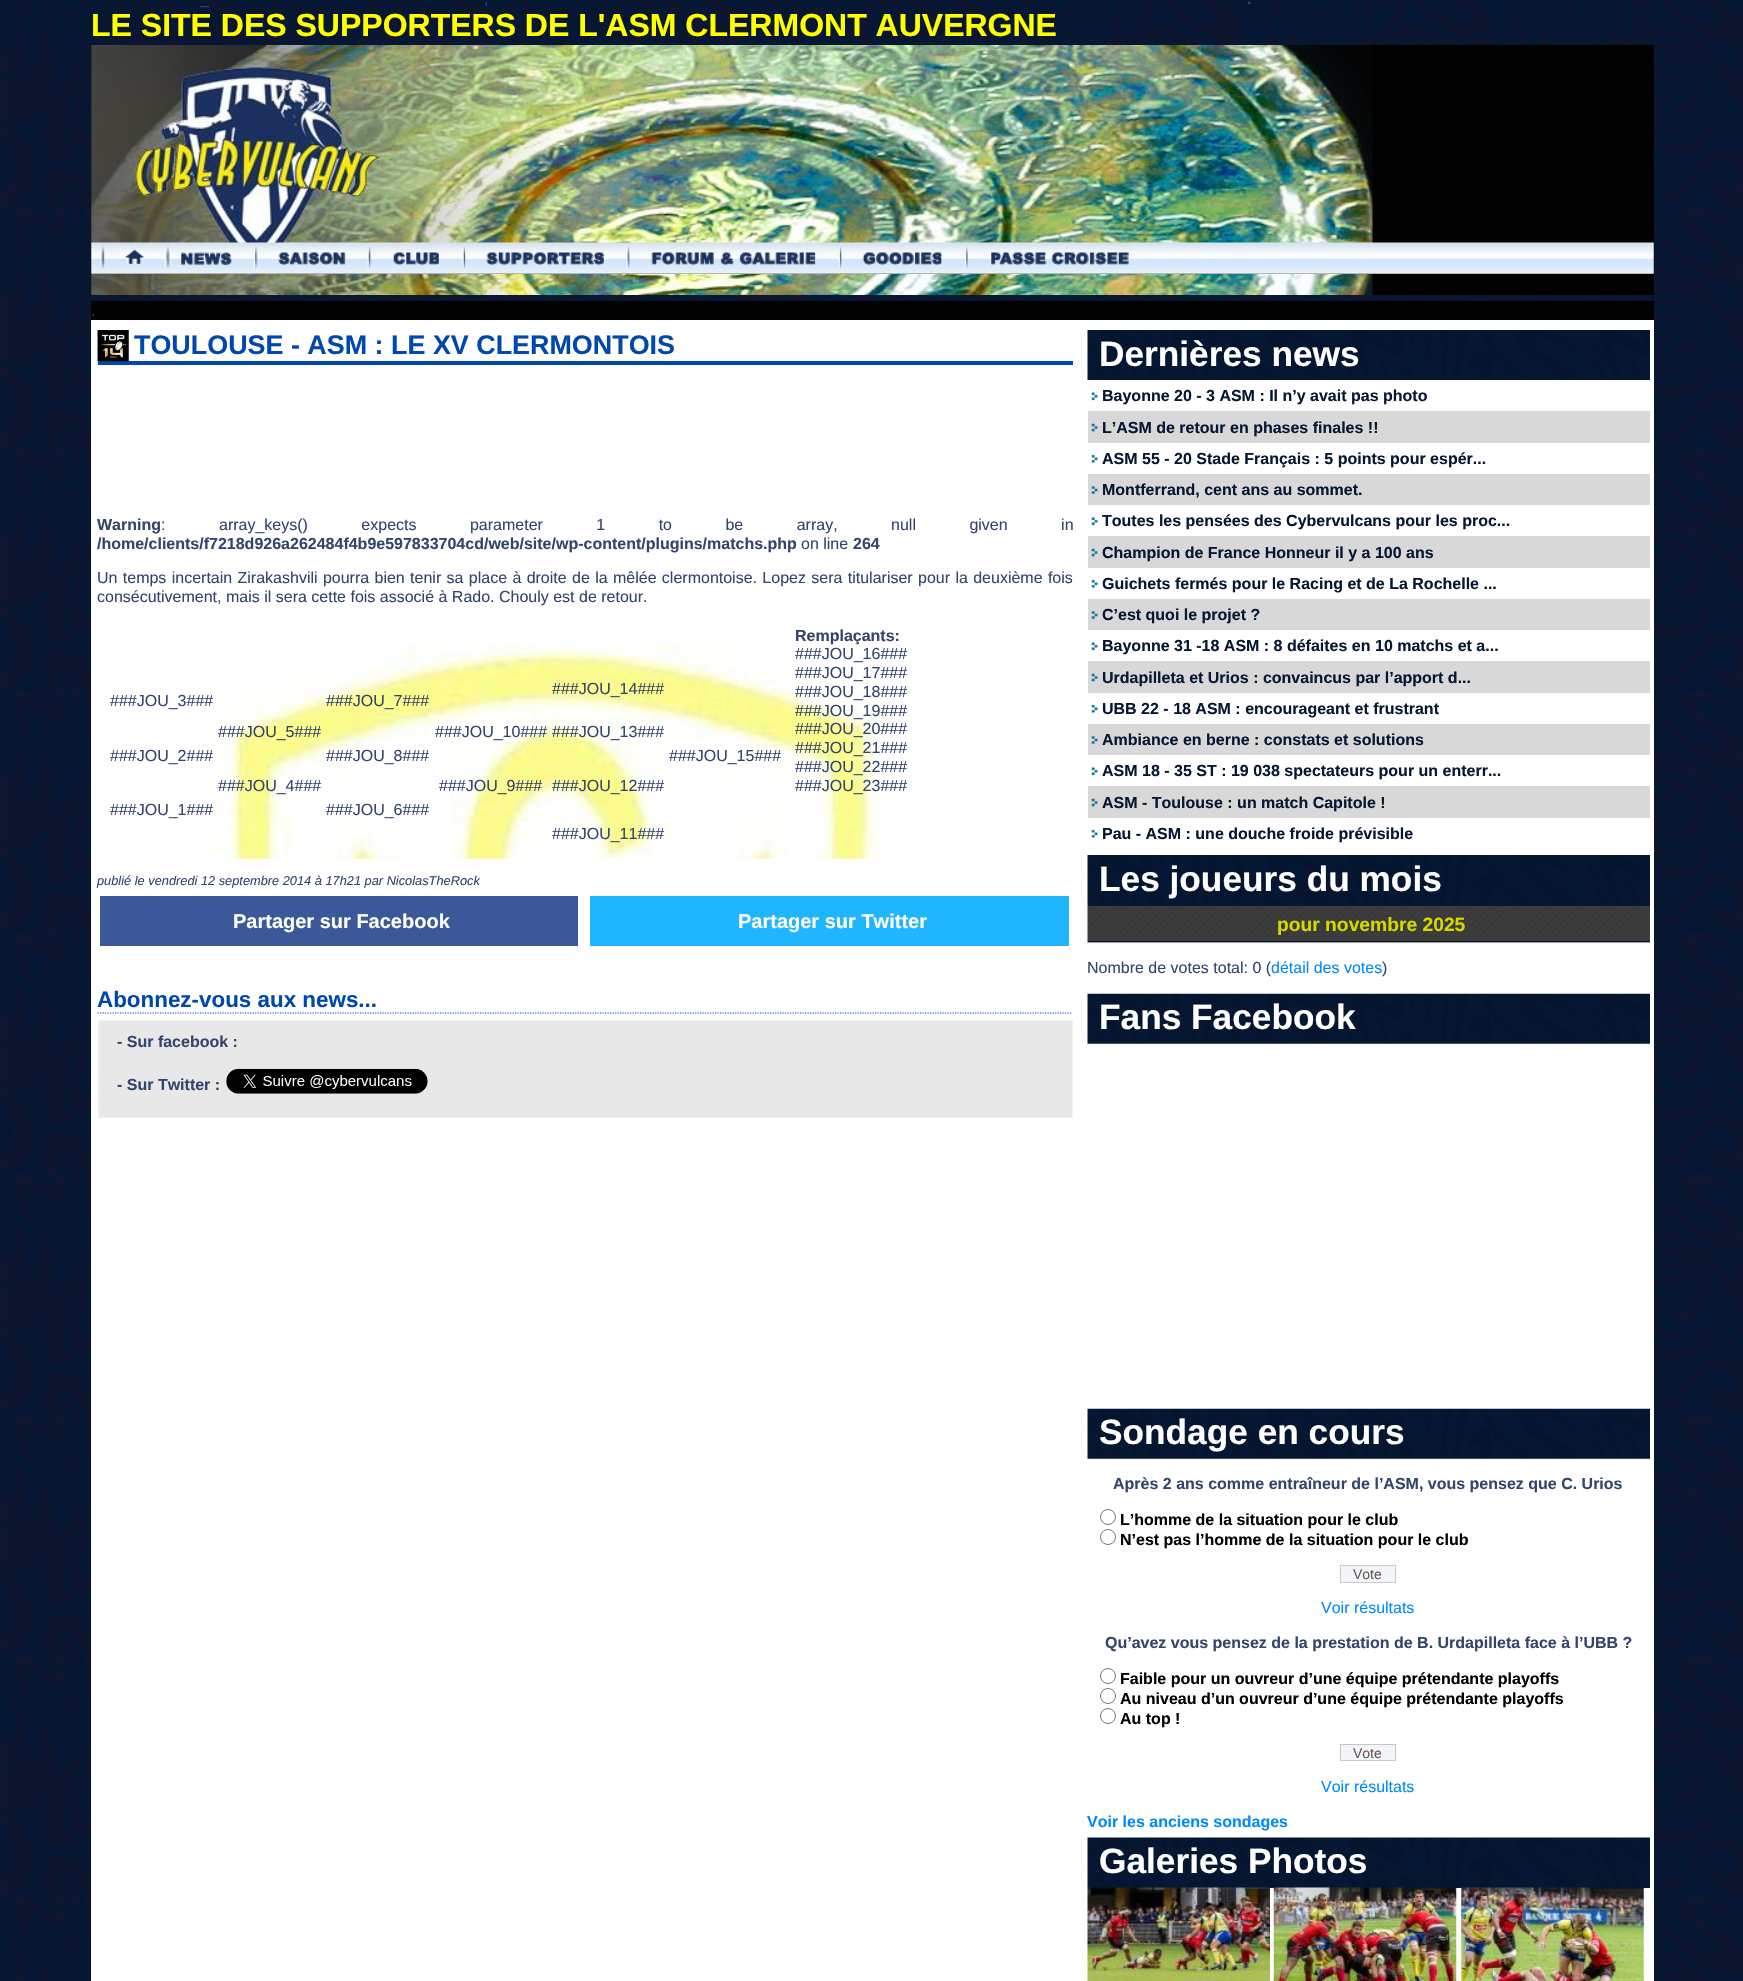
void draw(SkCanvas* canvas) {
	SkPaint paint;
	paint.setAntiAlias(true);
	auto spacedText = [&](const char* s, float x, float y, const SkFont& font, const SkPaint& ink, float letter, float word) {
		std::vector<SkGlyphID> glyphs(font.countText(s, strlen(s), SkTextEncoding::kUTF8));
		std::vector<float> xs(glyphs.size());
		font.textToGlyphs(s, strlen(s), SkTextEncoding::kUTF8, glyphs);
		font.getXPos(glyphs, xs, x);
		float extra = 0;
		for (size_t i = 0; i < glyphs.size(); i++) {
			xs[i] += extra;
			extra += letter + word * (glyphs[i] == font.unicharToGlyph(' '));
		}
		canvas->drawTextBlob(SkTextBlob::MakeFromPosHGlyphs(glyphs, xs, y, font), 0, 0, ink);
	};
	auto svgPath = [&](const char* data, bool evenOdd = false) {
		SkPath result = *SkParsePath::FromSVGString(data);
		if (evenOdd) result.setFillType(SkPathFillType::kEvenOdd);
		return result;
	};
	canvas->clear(0xff051733);
	canvas->drawImageRect(SkImages::DeferredFromEncodedData(SkData::MakeFromFileName("img1.png")), SkRect::MakeXYWH(0, 0, 1743, 1981), SkSamplingOptions());
	SkFont f1(fontMgr->matchFamilyStyle("Liberation Sans", SkFontStyle::Normal()), 16);
	f1.setSubpixel(true);
	paint.setColor(0xff33456d);
	canvas->drawString("_", 200, 4, f1, paint);
	canvas->drawString(",", 484, 4, f1, paint);
	SkFont f2(fontMgr->matchFamilyStyle("Liberation Sans", SkFontStyle::Bold()), 16);
	f2.setSubpixel(true);
	canvas->drawString(".", 1247, 4, f2, paint);
	SkFont f3(fontMgr->matchFamilyStyle("Liberation Sans", SkFontStyle::Bold()), 32);
	f3.setSubpixel(true);
	paint.setColor(0xffffff00);
	canvas->drawString("LE SITE DES SUPPORTERS DE L'ASM CLERMONT AUVERGNE", 91, 36, f3, paint);
	paint.setColor(0xff000000);
	canvas->drawRect(SkRect::MakeXYWH(91, 45, 1563, 250), paint);
	canvas->drawImageRect(SkImages::DeferredFromEncodedData(SkData::MakeFromFileName("img2.png")), SkRect::MakeXYWH(91, 45, 1282, 250), SkSamplingOptions());
	canvas->drawRect(SkRect::MakeXYWH(91, 243, 1282, 31), paint);
	canvas->drawImageRect(SkImages::DeferredFromEncodedData(SkData::MakeFromFileName("img3.png")), SkRect::MakeXYWH(91, 242, 1563, 32), SkSamplingOptions());
	canvas->drawRect(SkRect::MakeXYWH(91, 301, 1563, 19), paint);
	paint.setColor(0xff33456d);
	canvas->drawString(".", 91, 316, f1, paint);
	paint.setColor(0xffffffff);
	canvas->drawRect(SkRect::MakeXYWH(91, 320, 1563, 1661), paint);
	paint.setColor(0xff0048ae);
	canvas->drawRect(SkRect::MakeXYWH(98, 361, 975, 4), paint);
	canvas->drawImageRect(SkImages::DeferredFromEncodedData(SkData::MakeFromFileName("img4.png")), SkRect::MakeXYWH(97, 330, 32, 32), SkSamplingOptions());
	SkFont f4(fontMgr->matchFamilyStyle("Liberation Sans", SkFontStyle::Bold()), 26.9);
	f4.setSubpixel(true);
	canvas->drawString("TOULOUSE - ASM : LE XV CLERMONTOIS", 134, 354, f4, paint);
	paint.setColor(0xff33456d);
	canvas->drawString("Warning", 97, 530, f2, paint);
	canvas->drawString(":", 161, 530, f1, paint);
	spacedText("array_keys() expects parameter 1 to be array, null given in", 219, 530, f1, paint, 0, 49);
	canvas->drawString("/home/clients/f7218d926a262484f4b9e597833704cd/web/site/wp-content/plugins/matchs.php", 97, 549, f2, paint);
	canvas->drawString("on line", 801, 549, f1, paint);
	canvas->drawString("264", 853, 549, f2, paint);
	spacedText("Un temps incertain Zirakashvili pourra bien tenir sa place à droite de la mêlée clermontoise. Lopez sera titulariser pour la deuxième fois", 97, 583, f1, paint, 0, 0.9);
	canvas->drawString("consécutivement, mais il sera cette fois associé à Rado. Chouly est de retour.", 97, 602, f1, paint);
	canvas->drawImageRect(SkImages::DeferredFromEncodedData(SkData::MakeFromFileName("img5.png")), SkRect::MakeXYWH(205, 643, 681, 216), SkSamplingOptions());
	canvas->drawString("###JOU_3###", 110, 706, f1, paint);
	canvas->drawString("###JOU_7###", 326, 706, f1, paint);
	canvas->drawString("###JOU_14###", 552, 694, f1, paint);
	canvas->drawString("Remplaçants:", 795, 641, f2, paint);
	canvas->drawString("###JOU_16###", 795, 659, f1, paint);
	canvas->drawString("###JOU_17###", 795, 678, f1, paint);
	canvas->drawString("###JOU_18###", 795, 697, f1, paint);
	canvas->drawString("###JOU_19###", 795, 716, f1, paint);
	canvas->drawString("###JOU_20###", 795, 734, f1, paint);
	canvas->drawString("###JOU_21###", 795, 753, f1, paint);
	canvas->drawString("###JOU_22###", 795, 772, f1, paint);
	canvas->drawString("###JOU_23###", 795, 791, f1, paint);
	canvas->drawString("###JOU_5###", 218, 737, f1, paint);
	canvas->drawString("###JOU_10###", 435, 737, f1, paint);
	canvas->drawString("###JOU_13###", 552, 737, f1, paint);
	canvas->drawString("###JOU_2###", 110, 761, f1, paint);
	canvas->drawString("###JOU_8###", 326, 761, f1, paint);
	canvas->drawString("###JOU_15###", 669, 761, f1, paint);
	canvas->drawString("###JOU_4###", 218, 791, f1, paint);
	canvas->drawString("###JOU_9###", 439, 791, f1, paint);
	canvas->drawString("###JOU_12###", 552, 791, f1, paint);
	canvas->drawString("###JOU_1###", 110, 815, f1, paint);
	canvas->drawString("###JOU_6###", 326, 815, f1, paint);
	canvas->drawString("###JOU_11###", 552, 839, f1, paint);
	SkFont f5(fontMgr->matchFamilyStyle("Liberation Sans", SkFontStyle::Italic()), 12.8);
	f5.setSubpixel(true);
	canvas->drawString("publié le vendredi 12 septembre 2014 à 17h21 par NicolasTheRock", 97, 885, f5, paint);
	paint.setColor(0xff3b5998);
	canvas->drawRect(SkRect::MakeXYWH(100, 896, 478, 50), paint);
	SkFont f6(fontMgr->matchFamilyStyle("Liberation Sans", SkFontStyle::Bold()), 20);
	f6.setSubpixel(true);
	paint.setColor(0xffffffff);
	canvas->drawString("Partager sur Facebook", 233, 928, f6, paint);
	paint.setColor(0xff20b6ff);
	canvas->drawRect(SkRect::MakeXYWH(590, 896, 479, 50), paint);
	paint.setColor(0xffffffff);
	canvas->drawString("Partager sur Twitter", 738, 928, f6, paint);
	paint.setStroke(true);
	paint.setStrokeWidth(1.2);
	paint.setColor(0xff0048ae);
	paint.setPathEffect(SkDashPathEffect::Make({{1.25f, 1.25f}}, 0));
	canvas->drawPath(svgPath("M97.5 1013H1072.5"), paint);
	paint.setPathEffect(nullptr);
	SkFont f7(fontMgr->matchFamilyStyle("Liberation Sans", SkFontStyle::Bold()), 22.4);
	f7.setSubpixel(true);
	paint.setStroke(false);
	canvas->drawString("Abonnez-vous aux news...", 97, 1007, f7, paint);
	paint.setColor(0xffe8e8e8);
	canvas->drawRect(SkRect::MakeXYWH(98.5, 1020.5, 974, 97), paint);
	paint.setStroke(true);
	paint.setStrokeWidth(1);
	paint.setColor(0xfff1f3e3);
	canvas->drawRect(SkRect::MakeXYWH(98.5, 1020.5, 974, 97), paint);
	paint.setStroke(false);
	paint.setColor(0xff33456d);
	canvas->drawString("- Sur facebook :", 117, 1047, f2, paint);
	canvas->drawString("- Sur Twitter :", 117, 1090, f2, paint);
	canvas->drawImageRect(SkImages::DeferredFromEncodedData(SkData::MakeFromFileName("img6.png")), SkRect::MakeXYWH(226, 1068, 202, 26), SkSamplingOptions());
	canvas->drawImageRect(SkImages::DeferredFromEncodedData(SkData::MakeFromFileName("img7.png")), SkRect::MakeXYWH(1087, 330, 563, 50), SkSamplingOptions());
	SkFont f8(fontMgr->matchFamilyStyle("Liberation Sans", SkFontStyle::Bold()), 35.25);
	f8.setSubpixel(true);
	paint.setColor(0xffffffff);
	canvas->drawString("Dernières news", 1099, 366, f8, paint);
	canvas->drawImageRect(SkImages::DeferredFromEncodedData(SkData::MakeFromFileName("img8.png")), SkRect::MakeXYWH(1091, 392, 7, 9), SkSamplingOptions());
	paint.setColor(0xff051733);
	canvas->drawString("Bayonne 20 - 3 ASM : Il n’y avait pas photo", 1102, 401, f2, paint);
	paint.setColor(0xffd8d8d8);
	canvas->drawRect(SkRect::MakeXYWH(1088, 411, 562, 32), paint);
	canvas->drawImageRect(SkImages::DeferredFromEncodedData(SkData::MakeFromFileName("img9.png")), SkRect::MakeXYWH(1091, 423, 7, 9), SkSamplingOptions());
	paint.setColor(0xff051733);
	canvas->drawString("L’ASM de retour en phases finales !!", 1102, 433, f2, paint);
	canvas->drawImageRect(SkImages::DeferredFromEncodedData(SkData::MakeFromFileName("img10.png")), SkRect::MakeXYWH(1091, 454, 7, 9), SkSamplingOptions());
	canvas->drawString("ASM 55 - 20 Stade Français : 5 points pour espér...", 1102, 464, f2, paint);
	paint.setColor(0xffd8d8d8);
	canvas->drawRect(SkRect::MakeXYWH(1088, 474, 562, 31), paint);
	canvas->drawImageRect(SkImages::DeferredFromEncodedData(SkData::MakeFromFileName("img11.png")), SkRect::MakeXYWH(1091, 486, 7, 8), SkSamplingOptions());
	paint.setColor(0xff051733);
	canvas->drawString("Montferrand, cent ans au sommet.", 1102, 495, f2, paint);
	canvas->drawImageRect(SkImages::DeferredFromEncodedData(SkData::MakeFromFileName("img8.png")), SkRect::MakeXYWH(1091, 517, 7, 9), SkSamplingOptions());
	canvas->drawString("Toutes les pensées des Cybervulcans pour les proc...", 1102, 526, f2, paint);
	paint.setColor(0xffd8d8d8);
	canvas->drawRect(SkRect::MakeXYWH(1088, 536, 562, 32), paint);
	canvas->drawImageRect(SkImages::DeferredFromEncodedData(SkData::MakeFromFileName("img9.png")), SkRect::MakeXYWH(1091, 548, 7, 9), SkSamplingOptions());
	paint.setColor(0xff051733);
	canvas->drawString("Champion de France Honneur il y a 100 ans", 1102, 558, f2, paint);
	canvas->drawImageRect(SkImages::DeferredFromEncodedData(SkData::MakeFromFileName("img10.png")), SkRect::MakeXYWH(1091, 579, 7, 9), SkSamplingOptions());
	canvas->drawString("Guichets fermés pour le Racing et de La Rochelle ...", 1102, 589, f2, paint);
	paint.setColor(0xffd8d8d8);
	canvas->drawRect(SkRect::MakeXYWH(1088, 599, 562, 31), paint);
	canvas->drawImageRect(SkImages::DeferredFromEncodedData(SkData::MakeFromFileName("img11.png")), SkRect::MakeXYWH(1091, 611, 7, 8), SkSamplingOptions());
	paint.setColor(0xff051733);
	canvas->drawString("C’est quoi le projet ?", 1102, 620, f2, paint);
	canvas->drawImageRect(SkImages::DeferredFromEncodedData(SkData::MakeFromFileName("img8.png")), SkRect::MakeXYWH(1091, 642, 7, 9), SkSamplingOptions());
	canvas->drawString("Bayonne 31 -18 ASM : 8 défaites en 10 matchs et a...", 1102, 651, f2, paint);
	paint.setColor(0xffd8d8d8);
	canvas->drawRect(SkRect::MakeXYWH(1088, 661, 562, 32), paint);
	canvas->drawImageRect(SkImages::DeferredFromEncodedData(SkData::MakeFromFileName("img9.png")), SkRect::MakeXYWH(1091, 673, 7, 9), SkSamplingOptions());
	paint.setColor(0xff051733);
	canvas->drawString("Urdapilleta et Urios : convaincus par l’apport d...", 1102, 683, f2, paint);
	canvas->drawImageRect(SkImages::DeferredFromEncodedData(SkData::MakeFromFileName("img10.png")), SkRect::MakeXYWH(1091, 704, 7, 9), SkSamplingOptions());
	canvas->drawString("UBB 22 - 18 ASM : encourageant et frustrant", 1102, 714, f2, paint);
	paint.setColor(0xffd8d8d8);
	canvas->drawRect(SkRect::MakeXYWH(1088, 724, 562, 31), paint);
	canvas->drawImageRect(SkImages::DeferredFromEncodedData(SkData::MakeFromFileName("img11.png")), SkRect::MakeXYWH(1091, 736, 7, 8), SkSamplingOptions());
	paint.setColor(0xff051733);
	canvas->drawString("Ambiance en berne : constats et solutions", 1102, 745, f2, paint);
	canvas->drawImageRect(SkImages::DeferredFromEncodedData(SkData::MakeFromFileName("img8.png")), SkRect::MakeXYWH(1091, 767, 7, 9), SkSamplingOptions());
	canvas->drawString("ASM 18 - 35 ST : 19 038 spectateurs pour un enterr...", 1102, 776, f2, paint);
	paint.setColor(0xffd8d8d8);
	canvas->drawRect(SkRect::MakeXYWH(1088, 786, 562, 32), paint);
	canvas->drawImageRect(SkImages::DeferredFromEncodedData(SkData::MakeFromFileName("img9.png")), SkRect::MakeXYWH(1091, 798, 7, 9), SkSamplingOptions());
	paint.setColor(0xff051733);
	canvas->drawString("ASM - Toulouse : un match Capitole !", 1102, 808, f2, paint);
	canvas->drawImageRect(SkImages::DeferredFromEncodedData(SkData::MakeFromFileName("img10.png")), SkRect::MakeXYWH(1091, 829, 7, 9), SkSamplingOptions());
	canvas->drawString("Pau - ASM : une douche froide prévisible", 1102, 839, f2, paint);
	canvas->drawImageRect(SkImages::DeferredFromEncodedData(SkData::MakeFromFileName("img12.png")), SkRect::MakeXYWH(1087, 855, 563, 50), SkSamplingOptions());
	paint.setColor(0xffffffff);
	canvas->drawString("Les joueurs du mois", 1099, 891, f8, paint);
	canvas->drawImageRect(SkImages::DeferredFromEncodedData(SkData::MakeFromFileName("img13.png")), SkRect::MakeXYWH(1087, 905, 563, 38), SkSamplingOptions());
	paint.setColor(0xff051733);
	canvas->drawRect(SkRect::MakeXYWH(1088, 905, 562, 1), paint);
	canvas->drawRect(SkRect::MakeXYWH(1088, 941, 562, 1), paint);
	SkFont f9(fontMgr->matchFamilyStyle("Liberation Sans", SkFontStyle::Bold()), 19.25);
	f9.setSubpixel(true);
	paint.setColor(0xffd7d700);
	canvas->drawString("pour novembre 2025", 1277, 931, f9, paint);
	paint.setColor(0xff33456d);
	canvas->drawString("Nombre de votes total: 0 (", 1087, 973, f1, paint);
	paint.setColor(0xff008aff);
	canvas->drawString("détail des votes", 1271, 973, f1, paint);
	paint.setColor(0xff33456d);
	canvas->drawString(")", 1382, 973, f1, paint);
	canvas->drawImageRect(SkImages::DeferredFromEncodedData(SkData::MakeFromFileName("img14.png")), SkRect::MakeXYWH(1087, 993, 563, 51), SkSamplingOptions());
	paint.setColor(0xffffffff);
	canvas->drawString("Fans Facebook", 1099, 1029, f8, paint);
	canvas->drawImageRect(SkImages::DeferredFromEncodedData(SkData::MakeFromFileName("img15.png")), SkRect::MakeXYWH(1087, 1408, 563, 51), SkSamplingOptions());
	canvas->drawString("Sondage en cours", 1099, 1444, f8, paint);
	paint.setColor(0xff33456d);
	canvas->drawString("Après 2 ans comme entraîneur de l’ASM, vous pensez que C. Urios", 1113, 1489, f2, paint);
	paint.setStroke(true);
	paint.setColor(0xff767676);
	canvas->drawCircle(1108, 1517, 7.5, paint);
	paint.setStroke(false);
	paint.setColor(0xff000000);
	canvas->drawString("L’homme de la situation pour le club", 1120, 1525, f2, paint);
	paint.setStroke(true);
	paint.setColor(0xff767676);
	canvas->drawCircle(1108, 1537, 7.5, paint);
	paint.setStroke(false);
	paint.setColor(0xff000000);
	canvas->drawString("N’est pas l’homme de la situation pour le club", 1120, 1545, f2, paint);
	paint.setColor(0xfff3f6f8);
	canvas->drawRect(SkRect::MakeXYWH(1340.5, 1565.5, 55, 17), paint);
	paint.setStroke(true);
	paint.setColor(0xffc8c8c8);
	canvas->drawRect(SkRect::MakeXYWH(1340.5, 1565.5, 55, 17), paint);
	SkFont f10(fontMgr->matchFamilyStyle("Liberation Sans", SkFontStyle::Normal()), 14);
	f10.setSubpixel(true);
	paint.setStroke(false);
	paint.setColor(0xff6a5555);
	canvas->drawString("Vote", 1353, 1579, f10, paint);
	paint.setColor(0xff008aff);
	canvas->drawString("Voir résultats", 1321, 1613, f1, paint);
	paint.setColor(0xff33456d);
	canvas->drawString("Qu’avez vous pensez de la prestation de B. Urdapilleta face à l’UBB ?", 1105, 1648, f2, paint);
	paint.setStroke(true);
	paint.setColor(0xff767676);
	canvas->drawCircle(1108, 1676, 7.5, paint);
	paint.setStroke(false);
	paint.setColor(0xff000000);
	canvas->drawString("Faible pour un ouvreur d’une équipe prétendante playoffs", 1120, 1684, f2, paint);
	paint.setStroke(true);
	paint.setColor(0xff767676);
	canvas->drawCircle(1108, 1696, 7.5, paint);
	paint.setStroke(false);
	paint.setColor(0xff000000);
	canvas->drawString("Au niveau d’un ouvreur d’une équipe prétendante playoffs", 1120, 1704, f2, paint);
	paint.setStroke(true);
	paint.setColor(0xff767676);
	canvas->drawCircle(1108, 1716, 7.5, paint);
	paint.setStroke(false);
	paint.setColor(0xff000000);
	canvas->drawString("Au top !", 1120, 1724, f2, paint);
	paint.setColor(0xfff3f6f8);
	canvas->drawRect(SkRect::MakeXYWH(1340.5, 1744.5, 55, 16), paint);
	paint.setStroke(true);
	paint.setColor(0xffc8c8c8);
	canvas->drawRect(SkRect::MakeXYWH(1340.5, 1744.5, 55, 16), paint);
	paint.setStroke(false);
	paint.setColor(0xff6a5555);
	canvas->drawString("Vote", 1353, 1758, f10, paint);
	paint.setColor(0xff008aff);
	canvas->drawString("Voir résultats", 1321, 1792, f1, paint);
	canvas->drawString("Voir les anciens sondages", 1087, 1827, f2, paint);
	paint.setColor(0xff051733);
	canvas->drawRect(SkRect::MakeXYWH(1088, 1887, 562, 1), paint);
	canvas->drawImageRect(SkImages::DeferredFromEncodedData(SkData::MakeFromFileName("img16.png")), SkRect::MakeXYWH(1087, 1837, 563, 51), SkSamplingOptions());
	paint.setColor(0xffffffff);
	canvas->drawString("Galeries Photos", 1099, 1873, f8, paint);
	canvas->drawImageRect(SkImages::DeferredFromEncodedData(SkData::MakeFromFileName("img17.png")), SkRect::MakeXYWH(1087, 1887, 183, 94), SkSamplingOptions());
	canvas->drawImageRect(SkImages::DeferredFromEncodedData(SkData::MakeFromFileName("img18.png")), SkRect::MakeXYWH(1273, 1887, 184, 94), SkSamplingOptions());
	canvas->drawImageRect(SkImages::DeferredFromEncodedData(SkData::MakeFromFileName("img19.png")), SkRect::MakeXYWH(1461, 1887, 183, 94), SkSamplingOptions());
}
